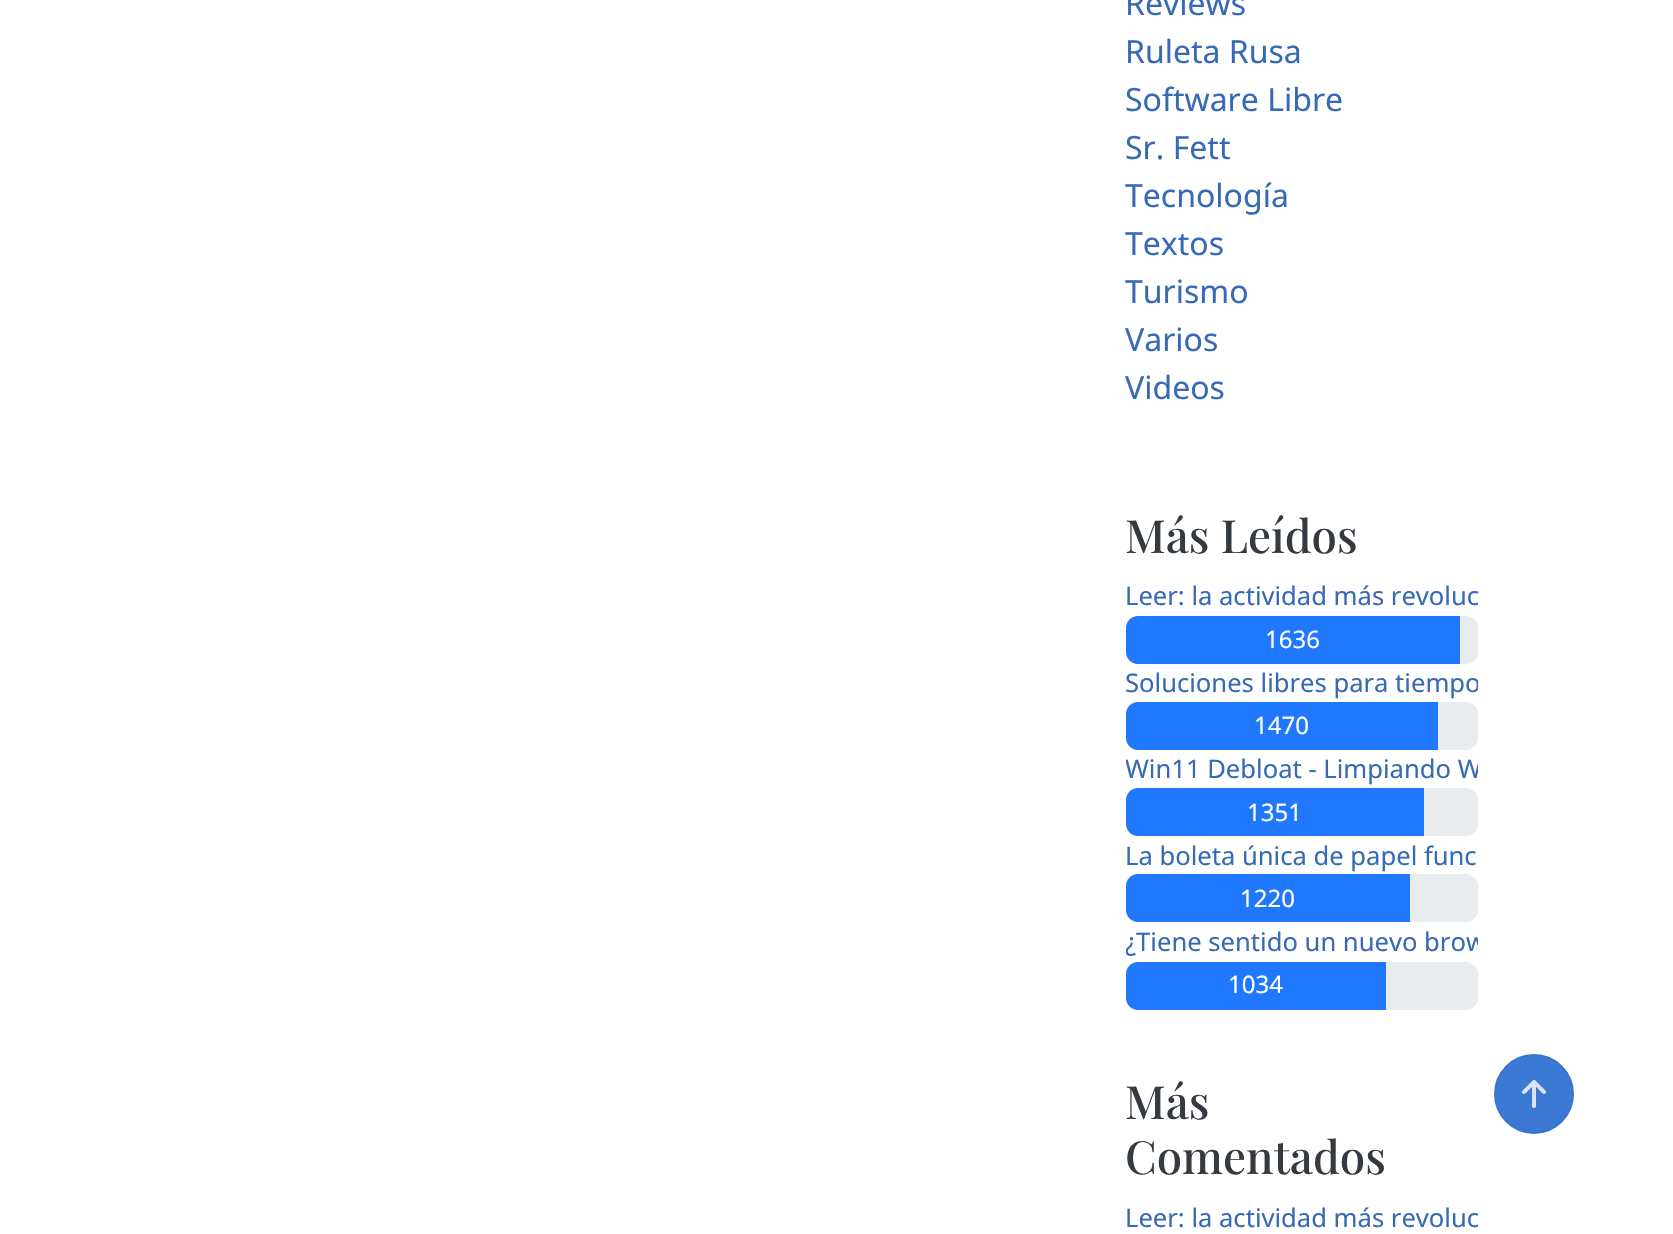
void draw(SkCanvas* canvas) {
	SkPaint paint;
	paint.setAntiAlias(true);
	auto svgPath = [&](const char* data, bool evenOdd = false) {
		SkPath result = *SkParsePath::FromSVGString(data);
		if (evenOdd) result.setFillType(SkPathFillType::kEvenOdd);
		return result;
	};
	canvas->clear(0xffffffff);
	SkFont f1(fontMgr->matchFamilyStyle("Noto Sans", SkFontStyle::Normal()), 32);
	f1.setSubpixel(true);
	paint.setColor(0xff376ab6);
	canvas->drawString("Reviews", 1125, 15, f1, paint);
	canvas->drawString("Ruleta Rusa", 1125, 63, f1, paint);
	canvas->drawString("Software Libre", 1125, 111, f1, paint);
	canvas->drawString("Sr. Fett", 1125, 159, f1, paint);
	canvas->drawString("Tecnología", 1125, 207, f1, paint);
	canvas->drawString("Textos", 1125, 255, f1, paint);
	canvas->drawString("Turismo", 1125, 303, f1, paint);
	canvas->drawString("Varios", 1125, 351, f1, paint);
	canvas->drawString("Videos", 1125, 399, f1, paint);
	SkFont f2(fontMgr->matchFamilyStyle("Playfair Display", SkFontStyle(500, SkFontStyle::kNormal_Width, SkFontStyle::kUpright_Slant)), 45.75);
	f2.setSubpixel(true);
	paint.setColor(0xff343a40);
	canvas->drawString("Más Leídos", 1125, 553, f2, paint);
	SkFont f3(fontMgr->matchFamilyStyle("Noto Sans", SkFontStyle::Normal()), 25.6);
	f3.setSubpixel(true);
	paint.setColor(0xff376ab6);
	canvas->drawString("Leer: la actividad más revoluc", 1125, 605, f3, paint);
	paint.setColor(0xffe9ecef);
	canvas->drawRoundRect(SkRect::MakeXYWH(1126, 616, 352, 48), 12, 12, paint);
	paint.setColor(0xff0d6efd);
	canvas->drawPath(svgPath("M1138 616H1460V664H1138C1131.5 664 1126 658.5 1126 652V628C1126 621.5 1131.5 616 1138 616Z"), paint);
	paint.setColor(0x12ffffff);
	canvas->drawPath(svgPath("M1138 616H1460V664H1138C1131.5 664 1126 658.5 1126 652V628C1126 621.5 1131.5 616 1138 616Z"), paint);
	SkFont f4(fontMgr->matchFamilyStyle("Noto Sans", SkFontStyle::Normal()), 24);
	f4.setSubpixel(true);
	paint.setColor(0xffffffff);
	canvas->drawString("1636", 1265, 648, f4, paint);
	canvas->save();
	canvas->clipRect(SkRect::MakeXYWH(1126, 664, 352, 38));
	paint.setColor(0xff376ab6);
	canvas->drawString("Soluciones libres para tiempo", 1125, 692, f3, paint);
	canvas->restore();
	paint.setColor(0xffe9ecef);
	canvas->drawRoundRect(SkRect::MakeXYWH(1126, 702, 352, 48), 12, 12, paint);
	paint.setColor(0xff0d6efd);
	canvas->drawPath(svgPath("M1138 702H1438V750H1138C1131.5 750 1126 744.5 1126 738V714C1126 707.5 1131.5 702 1138 702Z"), paint);
	paint.setColor(0x12ffffff);
	canvas->drawPath(svgPath("M1138 702H1438V750H1138C1131.5 750 1126 744.5 1126 738V714C1126 707.5 1131.5 702 1138 702Z"), paint);
	paint.setColor(0xffffffff);
	canvas->drawString("1470", 1254, 734, f4, paint);
	canvas->save();
	canvas->clipRect(SkRect::MakeXYWH(1126, 750, 352, 38));
	paint.setColor(0xff376ab6);
	canvas->drawString("Win11 Debloat - Limpiando W", 1125, 778, f3, paint);
	canvas->restore();
	paint.setColor(0xffe9ecef);
	canvas->drawRoundRect(SkRect::MakeXYWH(1126, 788, 352, 48), 12, 12, paint);
	paint.setColor(0xff0d6efd);
	canvas->drawPath(svgPath("M1138 788H1424V836H1138C1131.5 836 1126 830.5 1126 824V800C1126 793.5 1131.5 788 1138 788Z"), paint);
	paint.setColor(0x12ffffff);
	canvas->drawPath(svgPath("M1138 788H1424V836H1138C1131.5 836 1126 830.5 1126 824V800C1126 793.5 1131.5 788 1138 788Z"), paint);
	paint.setColor(0xffffffff);
	canvas->drawString("1351", 1247, 821, f4, paint);
	paint.setColor(0xff376ab6);
	canvas->drawString("La boleta única de papel func", 1125, 865, f3, paint);
	paint.setColor(0xffe9ecef);
	canvas->drawRoundRect(SkRect::MakeXYWH(1126, 874, 352, 48), 12, 12, paint);
	paint.setColor(0xff0d6efd);
	canvas->drawPath(svgPath("M1138 874H1410V922H1138C1131.5 922 1126 916.5 1126 910V886C1126 879.5 1131.5 874 1138 874Z"), paint);
	paint.setColor(0x12ffffff);
	canvas->drawPath(svgPath("M1138 874H1410V922H1138C1131.5 922 1126 916.5 1126 910V886C1126 879.5 1131.5 874 1138 874Z"), paint);
	paint.setColor(0xffffffff);
	canvas->drawString("1220", 1240, 907, f4, paint);
	canvas->save();
	canvas->clipRect(SkRect::MakeXYWH(1126, 922, 352, 40));
	paint.setColor(0xff376ab6);
	canvas->drawString("¿Tiene sentido un nuevo brow", 1125, 951, f3, paint);
	canvas->restore();
	paint.setColor(0xffe9ecef);
	canvas->drawRoundRect(SkRect::MakeXYWH(1126, 962, 352, 48), 12, 12, paint);
	paint.setColor(0xff0d6efd);
	canvas->drawPath(svgPath("M1138 962H1386V1010H1138C1131.5 1010 1126 1004.5 1126 998V974C1126 967.5 1131.5 962 1138 962Z"), paint);
	paint.setColor(0x12ffffff);
	canvas->drawPath(svgPath("M1138 962H1386V1010H1138C1131.5 1010 1126 1004.5 1126 998V974C1126 967.5 1131.5 962 1138 962Z"), paint);
	paint.setColor(0xffffffff);
	canvas->drawString("1034", 1228, 993, f4, paint);
	paint.setColor(0xff343a40);
	canvas->drawString("Más", 1125, 1119, f2, paint);
	canvas->drawString("Comentados", 1125, 1174, f2, paint);
	paint.setColor(0xff376ab6);
	canvas->drawString("Leer: la actividad más revoluc", 1125, 1227, f3, paint);
	paint.setColor(0xff3b79d5);
	canvas->drawCircle(1534, 1094, 39, paint);
	paint.setStroke(true);
	paint.setStrokeWidth(2);
	paint.setColor(0xff3b75cb);
	canvas->drawCircle(1534, 1094, 39, paint);
	canvas->drawImageRect(SkImages::DeferredFromEncodedData(SkData::MakeFromFileName("img1.png")), SkRect::MakeXYWH(1522, 1080, 24, 28), SkSamplingOptions());
}
